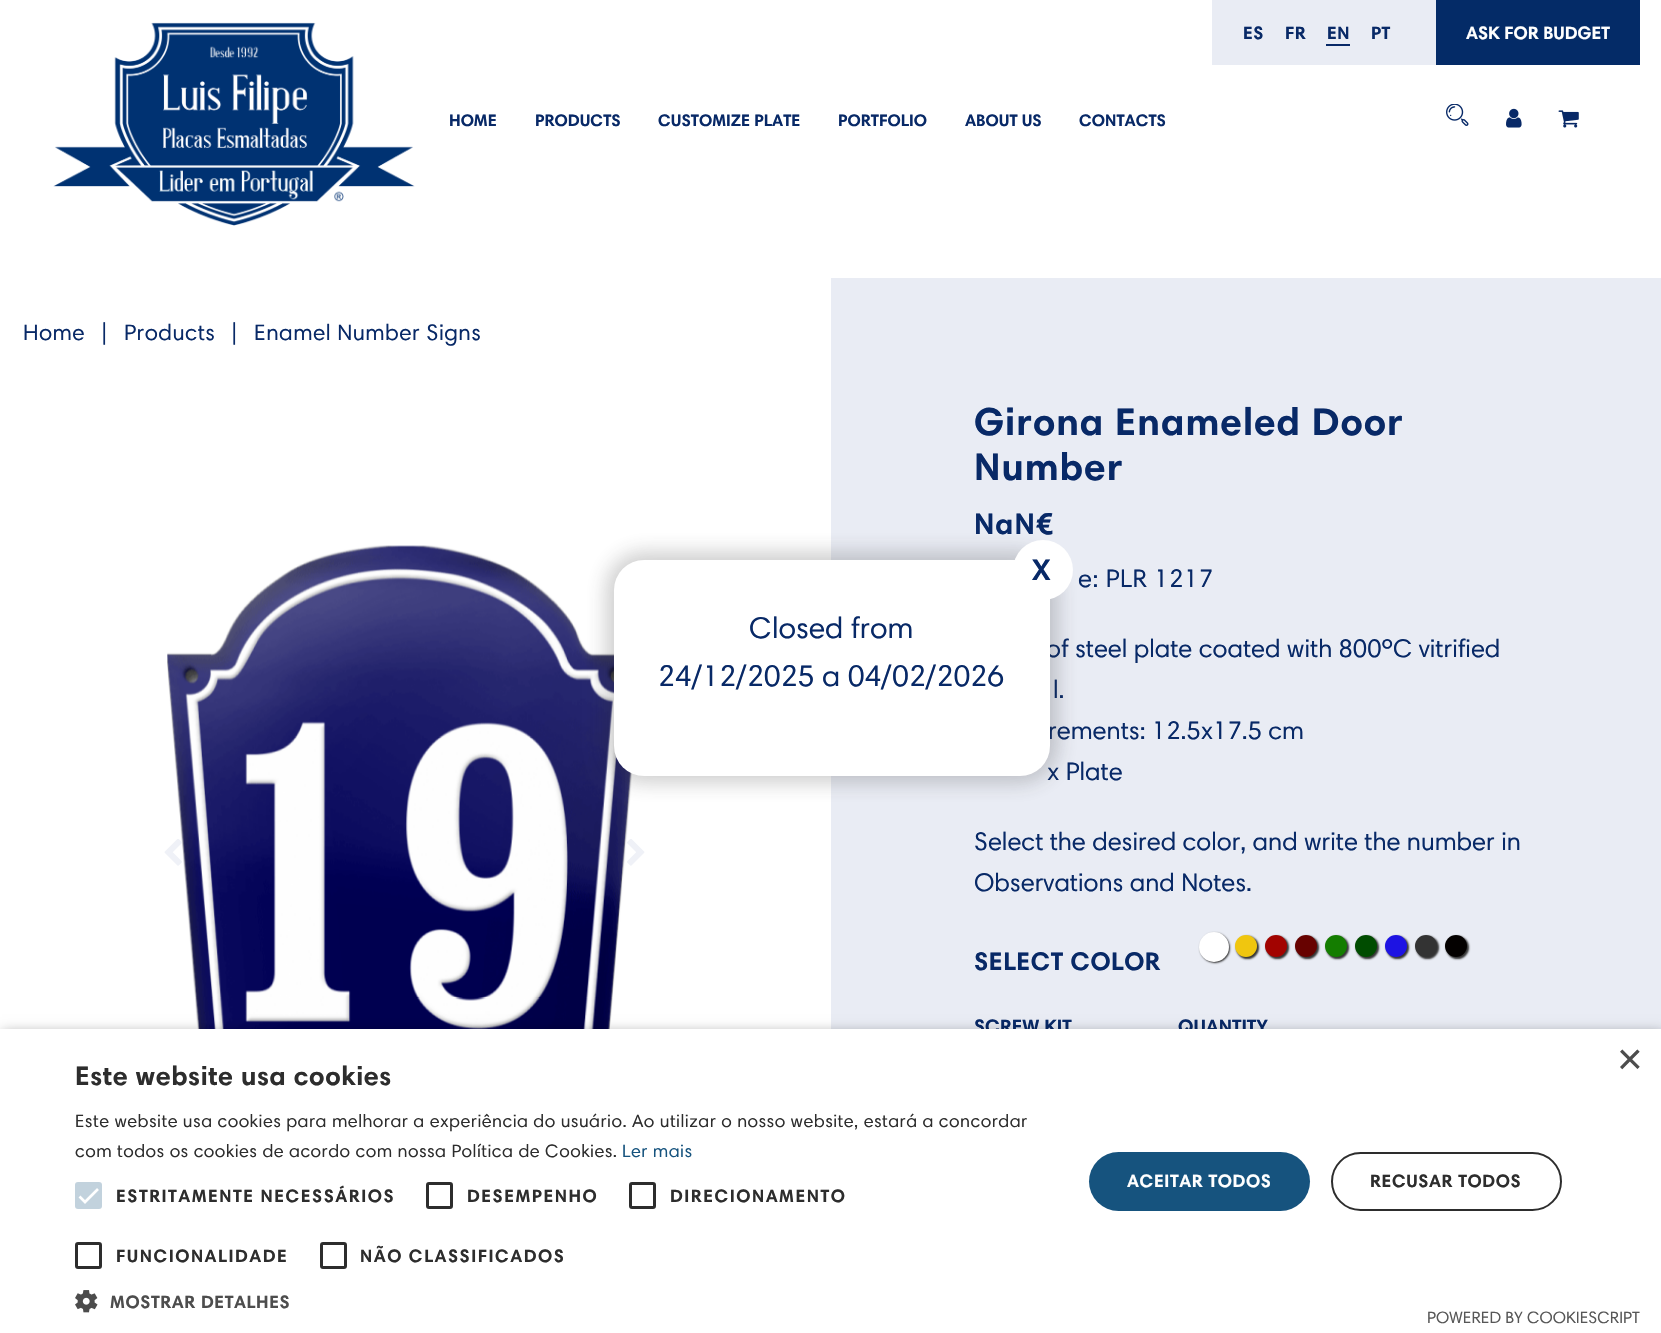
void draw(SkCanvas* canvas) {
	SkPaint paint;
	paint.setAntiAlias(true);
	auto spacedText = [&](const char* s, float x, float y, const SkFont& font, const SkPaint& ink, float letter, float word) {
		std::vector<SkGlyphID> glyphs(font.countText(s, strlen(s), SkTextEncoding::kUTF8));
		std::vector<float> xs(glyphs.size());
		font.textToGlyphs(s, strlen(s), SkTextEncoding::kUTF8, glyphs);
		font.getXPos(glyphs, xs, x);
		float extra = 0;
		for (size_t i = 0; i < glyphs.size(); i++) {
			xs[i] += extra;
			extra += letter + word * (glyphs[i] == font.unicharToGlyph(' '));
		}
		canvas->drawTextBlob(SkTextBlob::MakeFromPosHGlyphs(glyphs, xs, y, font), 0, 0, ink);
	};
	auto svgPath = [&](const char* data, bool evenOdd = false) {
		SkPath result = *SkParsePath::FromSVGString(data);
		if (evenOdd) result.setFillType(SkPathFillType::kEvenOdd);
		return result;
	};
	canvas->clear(0xffffffff);
	canvas->drawImageRect(SkImages::DeferredFromEncodedData(SkData::MakeFromFileName("img1.png")), SkRect::MakeXYWH(53, 22, 362, 204), SkSamplingOptions());
	paint.setColor(0xffe9ecf4);
	canvas->drawRect(SkRect::MakeXYWH(1212, 0, 224, 65), paint);
	SkFont f1(fontMgr->matchFamilyStyle("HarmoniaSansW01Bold", SkFontStyle::Bold()), 18);
	f1.setSubpixel(true);
	paint.setColor(0xff082967);
	spacedText("ES", 1243, 39, f1, paint, 0.45, 0);
	spacedText("FR", 1285, 39, f1, paint, 0.45, 0);
	spacedText("EN", 1327, 39, f1, paint, 0.45, 0);
	canvas->drawRect(SkRect::MakeXYWH(1326, 44, 24, 2), paint);
	spacedText("PT", 1371, 39, f1, paint, 0.45, 0);
	paint.setColor(0xff042b67);
	canvas->drawRect(SkRect::MakeXYWH(1436, 0, 204, 65), paint);
	paint.setColor(0xffffffff);
	canvas->drawString("ASK FOR BUDGET", 1466, 39, f1, paint);
	SkFont f2(fontMgr->matchFamilyStyle("HarmoniaSansW01Bold", SkFontStyle::Bold()), 16.75);
	f2.setSubpixel(true);
	paint.setColor(0xff082967);
	canvas->drawString("HOME", 449, 126, f2, paint);
	canvas->drawString("PRODUCTS", 535, 126, f2, paint);
	canvas->drawString("CUSTOMIZE PLATE", 658, 126, f2, paint);
	canvas->drawString("PORTFOLIO", 838, 126, f2, paint);
	canvas->drawString("ABOUT US", 965, 126, f2, paint);
	canvas->drawString("CONTACTS", 1079, 126, f2, paint);
	canvas->drawImageRect(SkImages::DeferredFromEncodedData(SkData::MakeFromFileName("img2.png")), SkRect::MakeXYWH(1446, 104, 23, 22), SkSamplingOptions());
	canvas->drawImageRect(SkImages::DeferredFromEncodedData(SkData::MakeFromFileName("img3.png")), SkRect::MakeXYWH(1506, 108, 16, 20), SkSamplingOptions());
	canvas->drawImageRect(SkImages::DeferredFromEncodedData(SkData::MakeFromFileName("img4.png")), SkRect::MakeXYWH(1558, 110, 21, 18), SkSamplingOptions());
	{
		const SkColor colors[] = {0xffffffff, 0xffffffff, 0xffe9ecf4, 0xffe9ecf4};
		const float stops[] = {0, 0.5, 0.5, 1};
		const SkPoint ends[] = {{0, 1046}, {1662, 1046}};
		paint.setShader(SkGradientShader::MakeLinear(ends, colors, stops, 4, SkTileMode::kClamp));
		paint.setAlpha(255);
	}
	canvas->drawRect(SkRect::MakeXYWH(831, 278, 830, 751), paint);
	SkFont f3(fontMgr->matchFamilyStyle("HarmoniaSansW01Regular", SkFontStyle::Normal()), 22.5);
	f3.setSubpixel(true);
	paint.setShader(nullptr);
	paint.setColor(0xff082967);
	spacedText("Home", 23, 340, f3, paint, 0.45, 0);
	spacedText("|", 100, 340, f3, paint, 0.45, 0);
	spacedText("Products", 124, 340, f3, paint, 0.45, 0);
	spacedText("|", 230, 340, f3, paint, 0.45, 0);
	spacedText("Enamel Number Signs", 254, 340, f3, paint, 0.45, 0);
	canvas->drawImageRect(SkImages::DeferredFromEncodedData(SkData::MakeFromFileName("img5.png")), SkRect::MakeXYWH(167, 545, 474, 484), SkSamplingOptions());
	canvas->drawImageRect(SkImages::DeferredFromEncodedData(SkData::MakeFromFileName("img6.png")), SkRect::MakeXYWH(164, 839, 18, 27), SkSamplingOptions());
	canvas->drawImageRect(SkImages::DeferredFromEncodedData(SkData::MakeFromFileName("img7.png")), SkRect::MakeXYWH(627, 839, 18, 27), SkSamplingOptions());
	SkFont f4(fontMgr->matchFamilyStyle("HarmoniaSansW01Bold", SkFontStyle::Bold()), 39);
	f4.setSubpixel(true);
	spacedText("Girona Enameled Door", 974, 435, f4, paint, 1, 0);
	spacedText("Number", 974, 480, f4, paint, 1, 0);
	SkFont f5(fontMgr->matchFamilyStyle("HarmoniaSansW01Bold", SkFontStyle::Bold()), 30);
	f5.setSubpixel(true);
	spacedText("NaN€", 974, 534, f5, paint, 1, 0);
	SkFont f6(fontMgr->matchFamilyStyle("HarmoniaSansW01Regular", SkFontStyle::Normal()), 25.5);
	f6.setSubpixel(true);
	spacedText("e: PLR 1217", 1078, 587, f6, paint, 0.5, 0);
	canvas->drawString("of steel plate coated with 800ºC vitrified", 1046, 657, f6, paint);
	canvas->drawString("l.", 1053, 698, f6, paint);
	canvas->drawString("rements: 12.5x17.5 cm", 1048, 739, f6, paint);
	canvas->drawString("x Plate", 1047, 780, f6, paint);
	canvas->drawString("Select the desired color, and write the number in", 974, 850, f6, paint);
	canvas->drawString("Observations and Notes.", 974, 891, f6, paint);
	SkFont f7(fontMgr->matchFamilyStyle("HarmoniaSansW01Bold", SkFontStyle::Bold()), 25.5);
	f7.setSubpixel(true);
	spacedText("SELECT COLOR", 974, 970, f7, paint, 0.5, 0);
	paint.setColor(0xff333333);
	paint.setMaskFilter(SkMaskFilter::MakeBlur(kNormal_SkBlurStyle, 1));
	canvas->drawRoundRect(SkRect::MakeXYWH(1200, 933, 30, 30), 15, 15, paint);
	paint.setMaskFilter(nullptr);
	paint.setColor(0xffffffff);
	canvas->drawCircle(1214, 947, 15, paint);
	paint.setColor(0xff333333);
	paint.setMaskFilter(SkMaskFilter::MakeBlur(kNormal_SkBlurStyle, 1));
	canvas->drawRoundRect(SkRect::MakeXYWH(1236, 936, 23, 23), 11.5, 11.5, paint);
	paint.setMaskFilter(nullptr);
	paint.setColor(0xfff0c60f);
	canvas->drawCircle(1246, 946, 11, paint);
	paint.setColor(0xff333333);
	paint.setMaskFilter(SkMaskFilter::MakeBlur(kNormal_SkBlurStyle, 1));
	canvas->drawRoundRect(SkRect::MakeXYWH(1266, 936, 23, 23), 11.5, 11.5, paint);
	paint.setMaskFilter(nullptr);
	paint.setColor(0xffa20300);
	canvas->drawCircle(1276, 946, 11, paint);
	paint.setColor(0xff333333);
	paint.setMaskFilter(SkMaskFilter::MakeBlur(kNormal_SkBlurStyle, 1));
	canvas->drawRoundRect(SkRect::MakeXYWH(1296, 936, 23, 23), 11.5, 11.5, paint);
	paint.setMaskFilter(nullptr);
	paint.setColor(0xff670200);
	canvas->drawCircle(1306, 946, 11, paint);
	paint.setColor(0xff333333);
	paint.setMaskFilter(SkMaskFilter::MakeBlur(kNormal_SkBlurStyle, 1));
	canvas->drawRoundRect(SkRect::MakeXYWH(1326, 936, 23, 23), 11.5, 11.5, paint);
	paint.setMaskFilter(nullptr);
	paint.setColor(0xff147d00);
	canvas->drawCircle(1336, 946, 11, paint);
	paint.setColor(0xff333333);
	paint.setMaskFilter(SkMaskFilter::MakeBlur(kNormal_SkBlurStyle, 1));
	canvas->drawRoundRect(SkRect::MakeXYWH(1356, 936, 23, 23), 11.5, 11.5, paint);
	paint.setMaskFilter(nullptr);
	paint.setColor(0xff004c00);
	canvas->drawCircle(1366, 946, 11, paint);
	paint.setColor(0xff333333);
	paint.setMaskFilter(SkMaskFilter::MakeBlur(kNormal_SkBlurStyle, 1));
	canvas->drawRoundRect(SkRect::MakeXYWH(1386, 936, 23, 23), 11.5, 11.5, paint);
	paint.setMaskFilter(nullptr);
	paint.setColor(0xff1d13e3);
	canvas->drawCircle(1396, 946, 11, paint);
	paint.setColor(0xff333333);
	paint.setMaskFilter(SkMaskFilter::MakeBlur(kNormal_SkBlurStyle, 1));
	canvas->drawRoundRect(SkRect::MakeXYWH(1416, 936, 23, 23), 11.5, 11.5, paint);
	paint.setMaskFilter(nullptr);
	canvas->drawCircle(1426, 946, 11, paint);
	paint.setMaskFilter(SkMaskFilter::MakeBlur(kNormal_SkBlurStyle, 1));
	canvas->drawRoundRect(SkRect::MakeXYWH(1446, 936, 23, 23), 11.5, 11.5, paint);
	paint.setMaskFilter(nullptr);
	paint.setColor(0xff040100);
	canvas->drawCircle(1456, 946, 11, paint);
	SkFont f8(fontMgr->matchFamilyStyle("HarmoniaSansW01Bold", SkFontStyle::Bold()), 19.5);
	f8.setSubpixel(true);
	paint.setColor(0xff082967);
	canvas->drawString("SCREW KIT", 974, 1033, f8, paint);
	canvas->drawString("QUANTITY", 1178, 1033, f8, paint);
	paint.setColor(0x3d333333);
	paint.setMaskFilter(SkMaskFilter::MakeBlur(kNormal_SkBlurStyle, 10));
	canvas->drawRoundRect(SkRect::MakeXYWH(606, 552, 452, 231), 38, 38, paint);
	paint.setMaskFilter(nullptr);
	paint.setColor(0xffffffff);
	canvas->drawRoundRect(SkRect::MakeXYWH(614, 560, 436, 216), 30, 30, paint);
	canvas->drawCircle(1043, 570, 30, paint);
	paint.setColor(0xff082967);
	canvas->drawString("X", 1032, 580, f5, paint);
	SkFont f9(fontMgr->matchFamilyStyle("HarmoniaSansW01Regular", SkFontStyle::Normal()), 30);
	f9.setSubpixel(true);
	canvas->drawString("Closed from", 749, 638, f9, paint);
	canvas->drawString("24/12/2025 a 04/02/2026", 658, 686, f9, paint);
	paint.setColor(0x59000000);
	paint.setMaskFilter(SkMaskFilter::MakeBlur(kNormal_SkBlurStyle, 6));
	canvas->drawRect(SkRect::MakeXYWH(2, 1032, 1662, 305), paint);
	paint.setMaskFilter(nullptr);
	paint.setColor(0xffffffff);
	canvas->drawRect(SkRect::MakeXYWH(0, 1029, 1661, 304), paint);
	SkFont f10(fontMgr->matchFamilyStyle("Liberation Sans", SkFontStyle::Normal()), 44);
	f10.setSubpixel(true);
	paint.setColor(0xff4d4d4d);
	canvas->drawString("×", 1617, 1074, f10, paint);
	SkFont f11(fontMgr->matchFamilyStyle("HarmoniaSansW01Bold", SkFontStyle::Bold()), 27);
	f11.setSubpixel(true);
	paint.setColor(0xff2d2d2d);
	spacedText("Este website usa cookies", 75, 1085, f11, paint, 0.6, 0);
	SkFont f12(fontMgr->matchFamilyStyle("HarmoniaSansW01Regular", SkFontStyle::Normal()), 18);
	f12.setSubpixel(true);
	spacedText("Este website usa cookies para melhorar a experiência do usuário. Ao utilizar o nosso website, estará a concordar", 75, 1127, f12, paint, 0.45, 0);
	spacedText("com todos os cookies de acordo com nossa Política de Cookies.", 75, 1157, f12, paint, 0.45, 0);
	paint.setColor(0xff16537e);
	spacedText("Ler mais", 622, 1157, f12, paint, 0.45, 0);
	paint.setColor(0xffc2d2dd);
	canvas->drawRoundRect(SkRect::MakeXYWH(75, 1182, 27, 27), 3, 3, paint);
	paint.setStroke(true);
	paint.setStrokeWidth(2.7);
	paint.setColor(0xffffffff);
	canvas->drawPath(svgPath("M79.5 1196.5L85 1202L98 1189"), paint);
	paint.setStroke(false);
	paint.setColor(0xff2d2d2d);
	spacedText("ESTRITAMENTE NECESSÁRIOS", 116, 1202, f1, paint, 1.5, 0);
	paint.setStroke(true);
	paint.setStrokeWidth(3);
	canvas->drawRoundRect(SkRect::MakeXYWH(427.5, 1183.5, 24, 24), 1.5, 1.5, paint);
	paint.setStroke(false);
	spacedText("DESEMPENHO", 467, 1202, f1, paint, 1.5, 0);
	paint.setStroke(true);
	canvas->drawRoundRect(SkRect::MakeXYWH(630.5, 1183.5, 24, 24), 1.5, 1.5, paint);
	paint.setStroke(false);
	spacedText("DIRECIONAMENTO", 670, 1202, f1, paint, 1.5, 0);
	paint.setStroke(true);
	canvas->drawRoundRect(SkRect::MakeXYWH(76.5, 1243.5, 24, 24), 1.5, 1.5, paint);
	paint.setStroke(false);
	spacedText("FUNCIONALIDADE", 116, 1262, f1, paint, 1.5, 0);
	paint.setStroke(true);
	canvas->drawRoundRect(SkRect::MakeXYWH(321.5, 1243.5, 24, 24), 1.5, 1.5, paint);
	paint.setStroke(false);
	spacedText("NÃO CLASSIFICADOS", 360, 1262, f1, paint, 1.5, 0);
	canvas->drawImageRect(SkImages::DeferredFromEncodedData(SkData::MakeFromFileName("img8.png")), SkRect::MakeXYWH(75, 1290, 23, 23), SkSamplingOptions());
	paint.setColor(0xff4d4d4d);
	spacedText("MOSTRAR DETALHES", 110, 1308, f1, paint, 0.6, 0);
	paint.setColor(0xff16537e);
	canvas->drawRoundRect(SkRect::MakeXYWH(1089, 1152, 221, 59), 29.5, 29.5, paint);
	paint.setColor(0xffffffff);
	spacedText("ACEITAR TODOS", 1127, 1187, f1, paint, 0.6, 0);
	paint.setStroke(true);
	paint.setStrokeWidth(2);
	paint.setColor(0xff2d2d2d);
	canvas->drawRoundRect(SkRect::MakeXYWH(1332, 1153, 229, 57), 28.5, 28.5, paint);
	paint.setStroke(false);
	spacedText("RECUSAR TODOS", 1370, 1187, f1, paint, 0.6, 0);
	SkFont f13(fontMgr->matchFamilyStyle("HarmoniaSansW01Regular", SkFontStyle::Normal()), 16.5);
	f13.setSubpixel(true);
	paint.setColor(0xff575757);
	canvas->drawString("POWERED BY COOKIESCRIPT", 1427, 1323, f13, paint);
}
